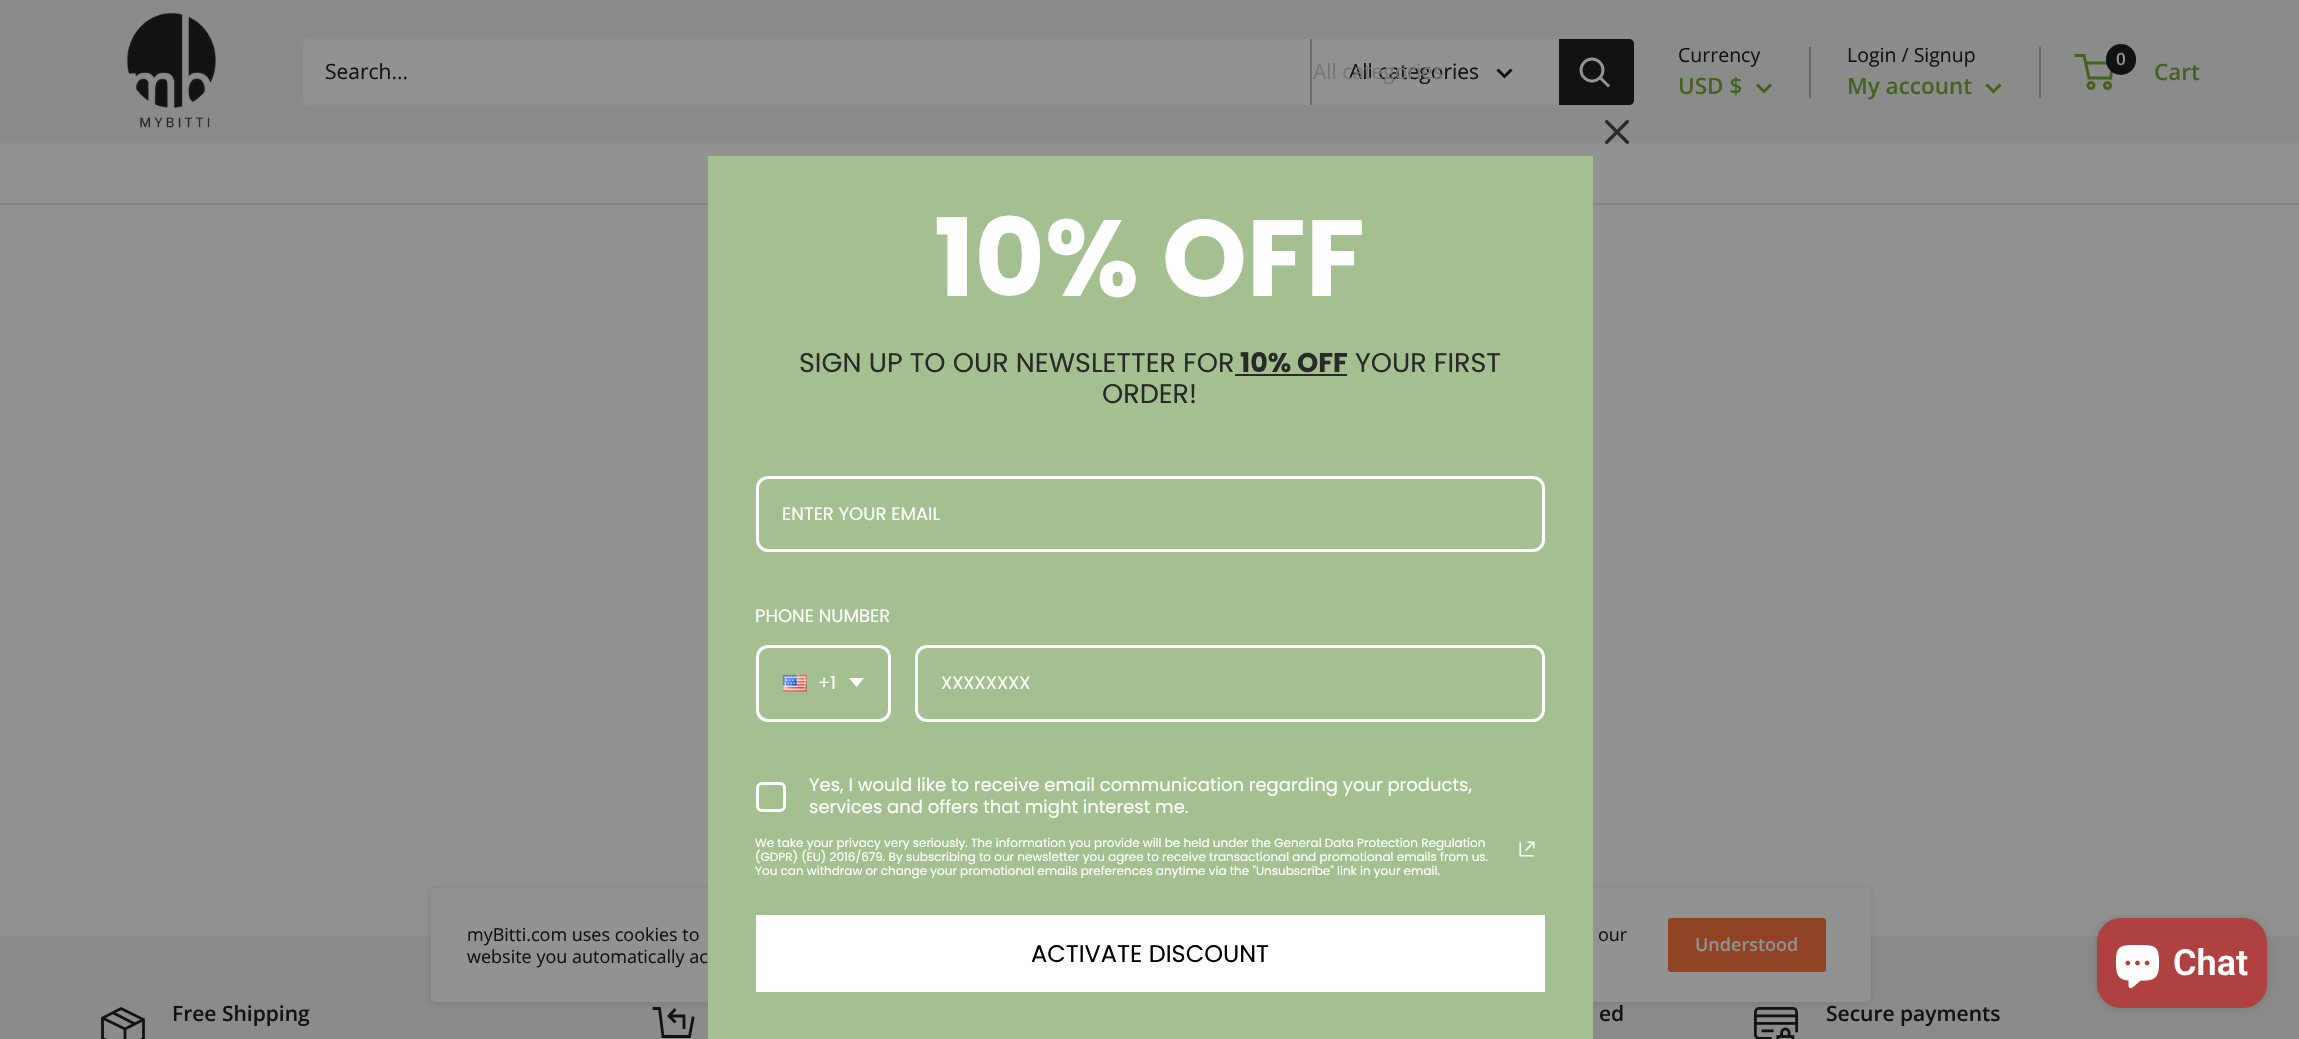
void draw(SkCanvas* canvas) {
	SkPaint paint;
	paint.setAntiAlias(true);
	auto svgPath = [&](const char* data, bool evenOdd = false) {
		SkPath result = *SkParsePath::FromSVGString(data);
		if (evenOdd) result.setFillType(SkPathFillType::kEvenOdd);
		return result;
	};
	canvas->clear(0xff919292);
	paint.setColor(0xff8a8b8b);
	canvas->drawRect(SkRect::MakeXYWH(0, 0, 2299, 143), paint);
	canvas->drawImageRect(SkImages::DeferredFromEncodedData(SkData::MakeFromFileName("img1.png")), SkRect::MakeXYWH(126, 12, 90, 116), SkSamplingOptions());
	paint.setColor(0xff919292);
	canvas->drawRoundRect(SkRect::MakeXYWH(303, 39, 1331, 66), 5, 5, paint);
	SkFont f1(fontMgr->matchFamilyStyle("Open Sans", SkFontStyle::Normal()), 21);
	f1.setSubpixel(true);
	paint.setColor(0xff111212);
	canvas->drawString("Search...", 325, 79, f1, paint);
	paint.setColor(0xff6b6c6c);
	canvas->drawRect(SkRect::MakeXYWH(1310, 39, 2, 66), paint);
	paint.setColor(0xff111212);
	canvas->drawString("All categories", 1349, 79, f1, paint);
	paint.setColor(0xff757676);
	canvas->drawString("All categories", 1313, 79, f1, paint);
	paint.setStroke(true);
	paint.setStrokeWidth(3);
	paint.setStrokeCap(SkPaint::kSquare_Cap);
	paint.setColor(0xff111212);
	canvas->drawPath(svgPath("M1510.5 70.5L1504.5 76.5L1498.5 70.5"), paint);
	paint.setStroke(false);
	canvas->drawPath(svgPath("M1559 39H1629C1632 39 1634 41 1634 44V100C1634 103 1632 105 1629 105H1559Z"), paint);
	paint.setStroke(true);
	paint.setColor(0xff919292);
	canvas->drawPath(svgPath("M1608 85.5L1600.5 78"), paint);
	paint.setStrokeCap(SkPaint::kButt_Cap);
	canvas->drawCircle(1592, 70, 11, paint);
	SkFont f2(fontMgr->matchFamilyStyle("Open Sans", SkFontStyle::Normal()), 19.5);
	f2.setSubpixel(true);
	paint.setStroke(false);
	paint.setColor(0xff111212);
	canvas->drawString("Currency", 1678, 62, f2, paint);
	SkFont f3(fontMgr->matchFamilyStyle("Open Sans", SkFontStyle(600, SkFontStyle::kNormal_Width, SkFontStyle::kUpright_Slant)), 22.5);
	f3.setSubpixel(true);
	paint.setColor(0xff45611f);
	canvas->drawString("USD $", 1678, 94, f3, paint);
	paint.setStroke(true);
	paint.setStrokeCap(SkPaint::kSquare_Cap);
	canvas->drawPath(svgPath("M1770 85.5L1764 91.5L1758 85.5"), paint);
	paint.setStroke(false);
	paint.setColor(0xff666767);
	canvas->drawRect(SkRect::MakeXYWH(1809, 47, 2, 51), paint);
	paint.setColor(0xff111212);
	canvas->drawString("Login / Signup", 1847, 62, f2, paint);
	paint.setColor(0xff666767);
	canvas->drawRect(SkRect::MakeXYWH(2039, 47, 2, 51), paint);
	paint.setColor(0xff45611f);
	canvas->drawString("My account", 1847, 94, f3, paint);
	paint.setStroke(true);
	canvas->drawPath(svgPath("M1999.5 85.5L1993.5 91.5L1987.5 85.5"), paint);
	paint.setStrokeCap(SkPaint::kButt_Cap);
	canvas->drawCircle(2091, 85.5, 3, paint);
	canvas->drawCircle(2107.5, 85.5, 3, paint);
	canvas->drawPath(svgPath("M2085.5 63H2113L2110.5 78H2089L2084 55.5H2074.5"), paint);
	paint.setStroke(false);
	paint.setColor(0xff111212);
	canvas->drawRoundRect(SkRect::MakeXYWH(2106, 44, 30, 31), 15, 15, paint);
	SkFont f4(fontMgr->matchFamilyStyle("Open Sans", SkFontStyle(600, SkFontStyle::kNormal_Width, SkFontStyle::kUpright_Slant)), 17);
	f4.setSubpixel(true);
	paint.setColor(0xff919292);
	canvas->drawString("0", 2116, 65, f4, paint);
	paint.setColor(0xff45611f);
	canvas->drawString("Cart", 2154, 80, f3, paint);
	paint.setColor(0xff858381);
	canvas->drawRect(SkRect::MakeXYWH(0, 203, 2299, 2), paint);
	canvas->drawImageRect(SkImages::DeferredFromEncodedData(SkData::MakeFromFileName("img2.png")), SkRect::MakeXYWH(1605, 120, 24, 24), SkSamplingOptions());
	paint.setColor(0xff8a8b8b);
	canvas->drawRect(SkRect::MakeXYWH(0, 936, 2299, 103), paint);
	paint.setStroke(true);
	paint.setStrokeWidth(2.8);
	paint.setColor(0xff111212);
	canvas->drawPath(svgPath("M669 1016H684V1029"), paint);
	paint.setStrokeCap(SkPaint::kSquare_Cap);
	canvas->drawPath(svgPath("M674.5 1021.5L669 1016L674.5 1010M693 1018L689.5 1036.5H663L659.5 1008.5H654"), paint);
	canvas->drawImageRect(SkImages::DeferredFromEncodedData(SkData::MakeFromFileName("img6.png")), SkRect::MakeXYWH(1754, 1007, 45, 32), SkSamplingOptions());
	paint.setStroke(false);
	paint.setColor(0x1a111212);
	paint.setMaskFilter(SkMaskFilter::MakeBlur(kNormal_SkBlurStyle, 3));
	canvas->drawRoundRect(SkRect::MakeXYWH(429, 888, 1443, 117), 6, 6, paint);
	paint.setMaskFilter(nullptr);
	paint.setColor(0xff919292);
	canvas->drawRoundRect(SkRect::MakeXYWH(431, 888, 1440, 114), 5, 5, paint);
	paint.setColor(0xffa5c090);
	canvas->drawRect(SkRect::MakeXYWH(708, 156, 885, 883), paint);
	SkFont f5(fontMgr->matchFamilyStyle("Poppins", SkFontStyle::Bold()), 108);
	f5.setSubpixel(true);
	paint.setColor(0xffffffff);
	canvas->drawString("10% OFF", 934, 296, f5, paint);
	SkFont f6(fontMgr->matchFamilyStyle("Poppins", SkFontStyle::Normal()), 27);
	f6.setSubpixel(true);
	paint.setColor(0xff292929);
	canvas->drawString("SIGN UP TO OUR NEWSLETTER FOR", 799, 372, f6, paint);
	SkFont f7(fontMgr->matchFamilyStyle("Poppins", SkFontStyle::Bold()), 27);
	f7.setSubpixel(true);
	canvas->drawString("10% OFF", 1240, 372, f7, paint);
	canvas->drawRect(SkRect::MakeXYWH(1235, 374, 112, 2), paint);
	canvas->drawString("YOUR FIRST", 1355, 372, f6, paint);
	canvas->drawString("ORDER!", 1102, 403, f6, paint);
	paint.setStroke(true);
	paint.setStrokeWidth(3);
	paint.setStrokeCap(SkPaint::kButt_Cap);
	paint.setColor(0xffffffff);
	canvas->drawRoundRect(SkRect::MakeXYWH(757.5, 477.5, 786, 73), 10.5, 10.5, paint);
	SkFont f8(fontMgr->matchFamilyStyle("Poppins", SkFontStyle::Normal()), 18);
	f8.setSubpixel(true);
	paint.setStroke(false);
	canvas->drawString("ENTER YOUR EMAIL", 782, 520, f8, paint);
	canvas->drawString("PHONE NUMBER", 755, 622, f8, paint);
	paint.setStroke(true);
	canvas->drawRoundRect(SkRect::MakeXYWH(757.5, 646.5, 132, 74), 10.5, 10.5, paint);
	canvas->drawImageRect(SkImages::DeferredFromEncodedData(SkData::MakeFromFileName("img3.png")), SkRect::MakeXYWH(782, 674, 25, 18), SkSamplingOptions());
	paint.setStroke(false);
	canvas->drawString("+1", 818, 689, f8, paint);
	canvas->drawPath(svgPath("M849 678H864L856.5 687Z", true), paint);
	paint.setStroke(true);
	canvas->drawRoundRect(SkRect::MakeXYWH(916.5, 646.5, 627, 74), 10.5, 10.5, paint);
	paint.setStroke(false);
	canvas->drawString("XXXXXXXX", 941, 689, f8, paint);
	paint.setStroke(true);
	canvas->drawRoundRect(SkRect::MakeXYWH(757.5, 783.5, 27, 27), 4.5, 4.5, paint);
	paint.setStroke(false);
	canvas->drawString("Yes, I would like to receive email communication regarding your products,", 809, 791, f8, paint);
	canvas->drawString("services and offers that might interest me.", 809, 813, f8, paint);
	SkFont f9(fontMgr->matchFamilyStyle("Poppins", SkFontStyle::Normal()), 12);
	f9.setSubpixel(true);
	canvas->drawString("We take your privacy very seriously. The information you provide will be held under the General Data Protection Regulation", 755, 847, f9, paint);
	canvas->drawString("(GDPR) (EU) 2016/679. By subscribing to our newsletter you agree to receive transactional and promotional emails from us.", 755, 861, f9, paint);
	canvas->drawString("You can withdraw or change your promotional emails preferences anytime via the \"Unsubscribe\" link in your email.", 755, 875, f9, paint);
	canvas->drawImageRect(SkImages::DeferredFromEncodedData(SkData::MakeFromFileName("img4.png")), SkRect::MakeXYWH(1519, 841, 16, 16), SkSamplingOptions());
	canvas->drawRect(SkRect::MakeXYWH(756, 915, 789, 77), paint);
	SkFont f10(fontMgr->matchFamilyStyle("Poppins", SkFontStyle::Normal()), 24);
	f10.setSubpixel(true);
	paint.setColor(0xff000000);
	canvas->drawString("ACTIVATE DISCOUNT", 1031, 962, f10, paint);
	SkFont f11(fontMgr->matchFamilyStyle("Open Sans", SkFontStyle::Normal()), 18);
	f11.setSubpixel(true);
	paint.setColor(0xff111212);
	canvas->drawString("myBitti.com uses cookies to", 467, 941, f11, paint);
	canvas->drawString("our", 1598, 941, f11, paint);
	canvas->drawString("website you automatically ac", 467, 963, f11, paint);
	paint.setColor(0xff914326);
	canvas->drawRoundRect(SkRect::MakeXYWH(1668, 918, 158, 54), 3, 3, paint);
	SkFont f12(fontMgr->matchFamilyStyle("Open Sans", SkFontStyle(600, SkFontStyle::kNormal_Width, SkFontStyle::kUpright_Slant)), 18);
	f12.setSubpixel(true);
	paint.setColor(0xff919292);
	canvas->drawString("Understood", 1695, 951, f12, paint);
	paint.setColor(0x26000000);
	paint.setMaskFilter(SkMaskFilter::MakeBlur(kNormal_SkBlurStyle, 4));
	canvas->drawRoundRect(SkRect::MakeXYWH(2097, 918, 170, 90), 24, 24, paint);
	paint.setMaskFilter(nullptr);
	paint.setColor(0xffaf4141);
	canvas->drawRoundRect(SkRect::MakeXYWH(2097, 918, 170, 90), 24, 24, paint);
	canvas->drawImageRect(SkImages::DeferredFromEncodedData(SkData::MakeFromFileName("img5.png")), SkRect::MakeXYWH(2115, 945, 45, 44), SkSamplingOptions());
	SkFont f13(fontMgr->matchFamilyStyle("Roboto", SkFontStyle(600, SkFontStyle::kNormal_Width, SkFontStyle::kUpright_Slant)), 36);
	f13.setSubpixel(true);
	paint.setColor(0xffffffff);
	canvas->drawString("Chat", 2173, 975, f13, paint);
	paint.setStroke(true);
	paint.setStrokeWidth(2.8);
	paint.setColor(0xff111212);
	canvas->drawPath(svgPath("M112.5 1012.5L135 1024M143.5 1019.5L125 1029L102.5 1018M125 1029V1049.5"), paint);
	paint.setStrokeCap(SkPaint::kSquare_Cap);
	canvas->drawPath(svgPath("M143.5 1019.5V1038.5L125 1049.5L102.5 1038.5V1018L121 1008.5Z"), paint);
	SkFont f14(fontMgr->matchFamilyStyle("Open Sans", SkFontStyle(600, SkFontStyle::kNormal_Width, SkFontStyle::kUpright_Slant)), 21);
	f14.setSubpixel(true);
	paint.setStroke(false);
	canvas->drawString("Free Shipping", 172, 1021, f14, paint);
	canvas->drawString("ed", 1599, 1021, f14, paint);
	canvas->drawString("Secure payments", 1826, 1021, f14, paint);
}
